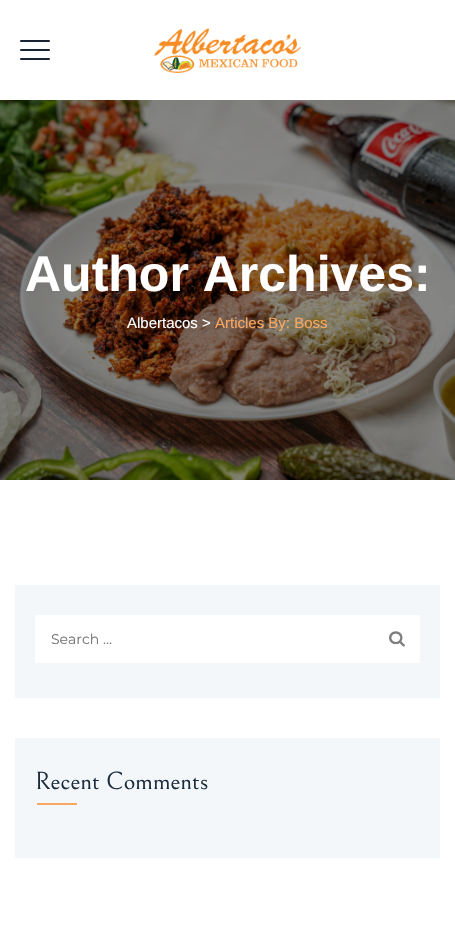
void draw(SkCanvas* canvas) {
	SkPaint paint;
	paint.setAntiAlias(true);
	canvas->clear(0xffffffff);
	paint.setColor(0xff182333);
	canvas->drawRoundRect(SkRect::MakeXYWH(20, 49, 30, 2), 1, 1, paint);
	canvas->drawRoundRect(SkRect::MakeXYWH(20, 40, 30, 2), 1, 1, paint);
	canvas->drawRoundRect(SkRect::MakeXYWH(20, 58, 30, 2), 1, 1, paint);
	canvas->drawImageRect(SkImages::DeferredFromEncodedData(SkData::MakeFromFileName("img1.png")), SkRect::MakeXYWH(154, 28, 147, 45), SkSamplingOptions());
	canvas->drawImageRect(SkImages::DeferredFromEncodedData(SkData::MakeFromFileName("img2.png")), SkRect::MakeXYWH(0, 100, 455, 380), SkSamplingOptions());
	SkFont f1(fontMgr->matchFamilyStyle("Liberation Sans", SkFontStyle::Bold()), 50);
	f1.setSubpixel(true);
	paint.setColor(0xffffffff);
	canvas->drawString("Author Archives:", 25, 291, f1, paint);
	SkFont f2(fontMgr->matchFamilyStyle("Liberation Sans", SkFontStyle::Normal()), 15);
	f2.setSubpixel(true);
	canvas->drawString("Albertacos >", 127, 328, f2, paint);
	paint.setColor(0xfff9a861);
	canvas->drawString("Articles By: Boss", 215, 328, f2, paint);
	paint.setColor(0xfff3f7fa);
	canvas->drawRect(SkRect::MakeXYWH(15, 585, 425, 113), paint);
	paint.setColor(0xffffffff);
	canvas->drawRect(SkRect::MakeXYWH(35, 615, 385, 48), paint);
	SkFont f3(fontMgr->matchFamilyStyle("Montserrat", SkFontStyle::Normal()), 14);
	f3.setSubpixel(true);
	paint.setColor(0xff757575);
	canvas->drawString("Search …", 51, 644, f3, paint);
	canvas->drawImageRect(SkImages::DeferredFromEncodedData(SkData::MakeFromFileName("img3.png")), SkRect::MakeXYWH(389, 631, 16, 16), SkSamplingOptions());
	paint.setColor(0xfff3f7fa);
	canvas->drawRect(SkRect::MakeXYWH(15, 738, 425, 120), paint);
	SkFont f4(fontMgr->matchFamilyStyle("Bellefair", SkFontStyle::Normal()), 25);
	f4.setSubpixel(true);
	paint.setColor(0xff1b2c3d);
	canvas->drawString("Recent Comments", 35, 789, f4, paint);
	paint.setColor(0xfff9a861);
	canvas->drawRect(SkRect::MakeXYWH(37, 803, 40, 2), paint);
}
